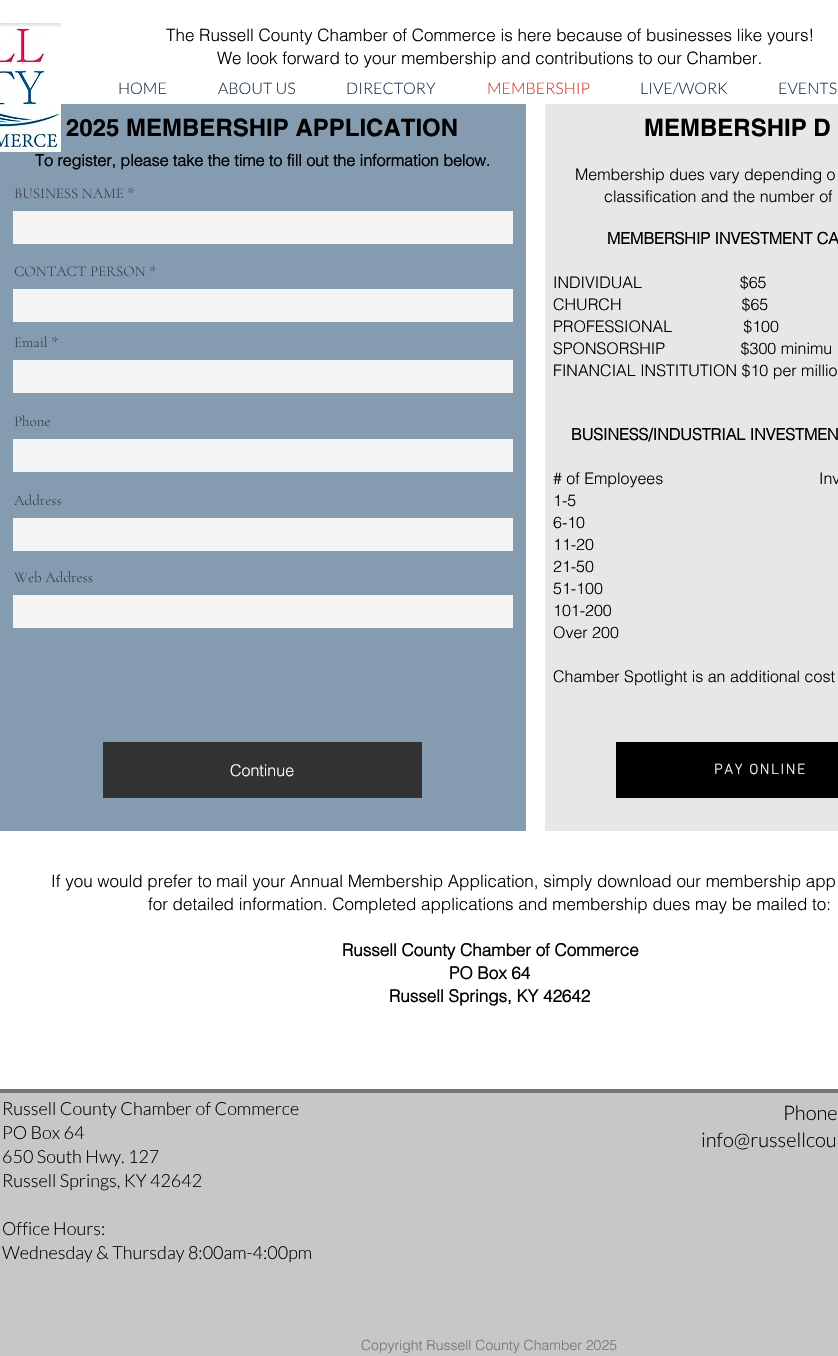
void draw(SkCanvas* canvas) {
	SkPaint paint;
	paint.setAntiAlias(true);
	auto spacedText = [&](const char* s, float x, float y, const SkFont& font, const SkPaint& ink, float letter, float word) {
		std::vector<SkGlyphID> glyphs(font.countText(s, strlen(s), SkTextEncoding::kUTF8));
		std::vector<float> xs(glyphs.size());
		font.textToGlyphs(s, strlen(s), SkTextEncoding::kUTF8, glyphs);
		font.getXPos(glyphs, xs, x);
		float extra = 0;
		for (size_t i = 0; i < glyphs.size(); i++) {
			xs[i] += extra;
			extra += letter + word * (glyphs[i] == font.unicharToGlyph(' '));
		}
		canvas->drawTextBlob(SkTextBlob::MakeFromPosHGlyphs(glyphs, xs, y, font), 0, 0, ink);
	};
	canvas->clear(0xffffffff);
	SkFont f1(fontMgr->matchFamilyStyle("helvetica", SkFontStyle(300, SkFontStyle::kNormal_Width, SkFontStyle::kUpright_Slant)), 17);
	f1.setSubpixel(true);
	paint.setColor(0xff000000);
	canvas->drawString("The Russell County Chamber of Commerce is here because of businesses like yours!", 166, 41, f1, paint);
	canvas->drawString("We look forward to your membership and contributions to our Chamber.", 217, 64, f1, paint);
	paint.setColor(0xff859baf);
	canvas->drawRect(SkRect::MakeXYWH(0, 104, 526, 727), paint);
	SkFont f2(fontMgr->matchFamilyStyle("helvetica", SkFontStyle::Bold()), 24);
	f2.setSubpixel(true);
	paint.setColor(0xff000000);
	canvas->drawString("2025 MEMBERSHIP APPLICATION", 66, 136, f2, paint);
	SkFont f3(fontMgr->matchFamilyStyle("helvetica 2", SkFontStyle::Bold()), 16);
	f3.setSubpixel(true);
	canvas->drawString("To register, please take the time to fill out the information below.", 35, 166, f3, paint);
	SkFont f4(fontMgr->matchFamilyStyle("Cormorant Garamond", SkFontStyle(300, SkFontStyle::kNormal_Width, SkFontStyle::kUpright_Slant)), 15);
	f4.setSubpixel(true);
	paint.setColor(0xff373b4d);
	canvas->drawString("BUSINESS NAME *", 14, 198, f4, paint);
	paint.setColor(0xfff5f5f5);
	canvas->drawRect(SkRect::MakeXYWH(13, 211, 500, 33), paint);
	paint.setColor(0xff373b4d);
	canvas->drawString("CONTACT PERSON *", 14, 276, f4, paint);
	paint.setColor(0xfff5f5f5);
	canvas->drawRect(SkRect::MakeXYWH(13, 289, 500, 33), paint);
	paint.setColor(0xff373b4d);
	canvas->drawString("Email *", 14, 347, f4, paint);
	paint.setColor(0xfff5f5f5);
	canvas->drawRect(SkRect::MakeXYWH(13, 360, 500, 33), paint);
	paint.setColor(0xff373b4d);
	canvas->drawString("Phone", 14, 426, f4, paint);
	paint.setColor(0xfff5f5f5);
	canvas->drawRect(SkRect::MakeXYWH(13, 439, 500, 33), paint);
	paint.setColor(0xff373b4d);
	canvas->drawString("Address", 14, 505, f4, paint);
	paint.setColor(0xfff5f5f5);
	canvas->drawRect(SkRect::MakeXYWH(13, 518, 500, 33), paint);
	paint.setColor(0xff373b4d);
	canvas->drawString("Web Address", 14, 582, f4, paint);
	paint.setColor(0xfff5f5f5);
	canvas->drawRect(SkRect::MakeXYWH(13, 595, 500, 33), paint);
	paint.setColor(0xff323232);
	canvas->drawRect(SkRect::MakeXYWH(103, 742, 319, 56), paint);
	SkFont f5(fontMgr->matchFamilyStyle("helvetica", SkFontStyle(300, SkFontStyle::kNormal_Width, SkFontStyle::kUpright_Slant)), 16);
	f5.setSubpixel(true);
	paint.setColor(0xffffffff);
	canvas->drawString("Continue", 230, 776, f5, paint);
	paint.setColor(0xffe8e6e6);
	canvas->drawRect(SkRect::MakeXYWH(545, 104, 293, 727), paint);
	paint.setColor(0xff000000);
	canvas->drawString("MEMBERSHIP D", 644, 136, f2, paint);
	canvas->drawString("Membership dues vary depending o", 575, 180, f5, paint);
	canvas->drawString("classification and the number of", 604, 202, f5, paint);
	canvas->drawString("MEMBERSHIP INVESTMENT CA", 607, 244, f3, paint);
	canvas->drawString("INDIVIDUAL                      $65", 553, 288, f5, paint);
	canvas->drawString("CHURCH                           $65", 553, 310, f5, paint);
	canvas->drawString("PROFESSIONAL                $100", 553, 332, f5, paint);
	canvas->drawString("SPONSORSHIP                 $300 minimu", 553, 354, f5, paint);
	canvas->drawString("FINANCIAL INSTITUTION $10 per millio", 553, 376, f5, paint);
	canvas->drawString("BUSINESS/INDUSTRIAL INVESTMEN", 571, 440, f3, paint);
	canvas->drawString("# of Employees                                   Inv", 553, 484, f5, paint);
	canvas->drawString("1-5", 553, 506, f5, paint);
	canvas->drawString("6-10", 553, 528, f5, paint);
	canvas->drawString("11-20", 553, 550, f5, paint);
	canvas->drawString("21-50", 553, 572, f5, paint);
	canvas->drawString("51-100", 553, 594, f5, paint);
	canvas->drawString("101-200", 553, 616, f5, paint);
	canvas->drawString("Over 200", 553, 638, f5, paint);
	canvas->drawString("Chamber Spotlight is an additional cost", 553, 682, f5, paint);
	canvas->drawRect(SkRect::MakeXYWH(616, 742, 222, 56), paint);
	SkFont f6(fontMgr->matchFamilyStyle("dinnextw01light", SkFontStyle(300, SkFontStyle::kNormal_Width, SkFontStyle::kUpright_Slant)), 15);
	f6.setSubpixel(true);
	paint.setColor(0xffffffff);
	spacedText("PAY ONLINE", 714, 774, f6, paint, 1.5, 0);
	paint.setColor(0xff000000);
	canvas->drawString("If you would prefer to mail your Annual Membership Application, simply download our membership app", 51, 887, f1, paint);
	canvas->drawString("for detailed information. Completed applications and membership dues may be mailed to:", 148, 910, f1, paint);
	SkFont f7(fontMgr->matchFamilyStyle("helvetica 2", SkFontStyle::Bold()), 17);
	f7.setSubpixel(true);
	canvas->drawString("Russell County Chamber of Commerce", 342, 956, f7, paint);
	canvas->drawString("PO Box 64", 449, 979, f7, paint);
	canvas->drawString("Russell Springs, KY 42642", 389, 1002, f7, paint);
	canvas->drawImageRect(SkImages::DeferredFromEncodedData(SkData::MakeFromFileName("img1.png")), SkRect::MakeXYWH(0, 23, 61, 129), SkSamplingOptions());
	SkFont f8(fontMgr->matchFamilyStyle("Lato", SkFontStyle(300, SkFontStyle::kNormal_Width, SkFontStyle::kUpright_Slant)), 16);
	f8.setSubpixel(true);
	paint.setColor(0xff193147);
	canvas->drawString("HOME", 118, 94, f8, paint);
	canvas->drawString("ABOUT US", 218, 94, f8, paint);
	canvas->drawString("DIRECTORY", 346, 94, f8, paint);
	paint.setColor(0xffdb382a);
	canvas->drawString("MEMBERSHIP", 487, 94, f8, paint);
	paint.setColor(0xff193147);
	canvas->drawString("LIVE/WORK", 640, 94, f8, paint);
	canvas->drawString("EVENTS", 778, 94, f8, paint);
	paint.setColor(0xffc7c7c7);
	canvas->drawRect(SkRect::MakeXYWH(0, 1093, 838, 263), paint);
	paint.setColor(0xff767676);
	canvas->drawRect(SkRect::MakeXYWH(0, 1089, 838, 4), paint);
	SkFont f9(fontMgr->matchFamilyStyle("Lato", SkFontStyle(300, SkFontStyle::kNormal_Width, SkFontStyle::kUpright_Slant)), 18);
	f9.setSubpixel(true);
	paint.setColor(0xff000000);
	canvas->drawString("Russell County Chamber of Commerce", 2, 1115, f9, paint);
	canvas->drawString("PO Box 64", 2, 1139, f9, paint);
	canvas->drawString("650 South Hwy. 127", 2, 1163, f9, paint);
	canvas->drawString("Russell Springs, KY 42642", 2, 1187, f9, paint);
	canvas->drawString("Office Hours:", 2, 1235, f9, paint);
	canvas->drawString("Wednesday & Thursday 8:00am-4:00pm", 2, 1259, f9, paint);
	SkFont f10(fontMgr->matchFamilyStyle("Lato", SkFontStyle(300, SkFontStyle::kNormal_Width, SkFontStyle::kUpright_Slant)), 20);
	f10.setSubpixel(true);
	canvas->drawString("Phone", 783, 1120, f10, paint);
	canvas->drawString("info@russellcou", 701, 1147, f10, paint);
	SkFont f11(fontMgr->matchFamilyStyle("helvetica", SkFontStyle(300, SkFontStyle::kNormal_Width, SkFontStyle::kUpright_Slant)), 14);
	f11.setSubpixel(true);
	paint.setColor(0xff767676);
	canvas->drawString("Copyright Russell County Chamber 2025", 361, 1350, f11, paint);
}
